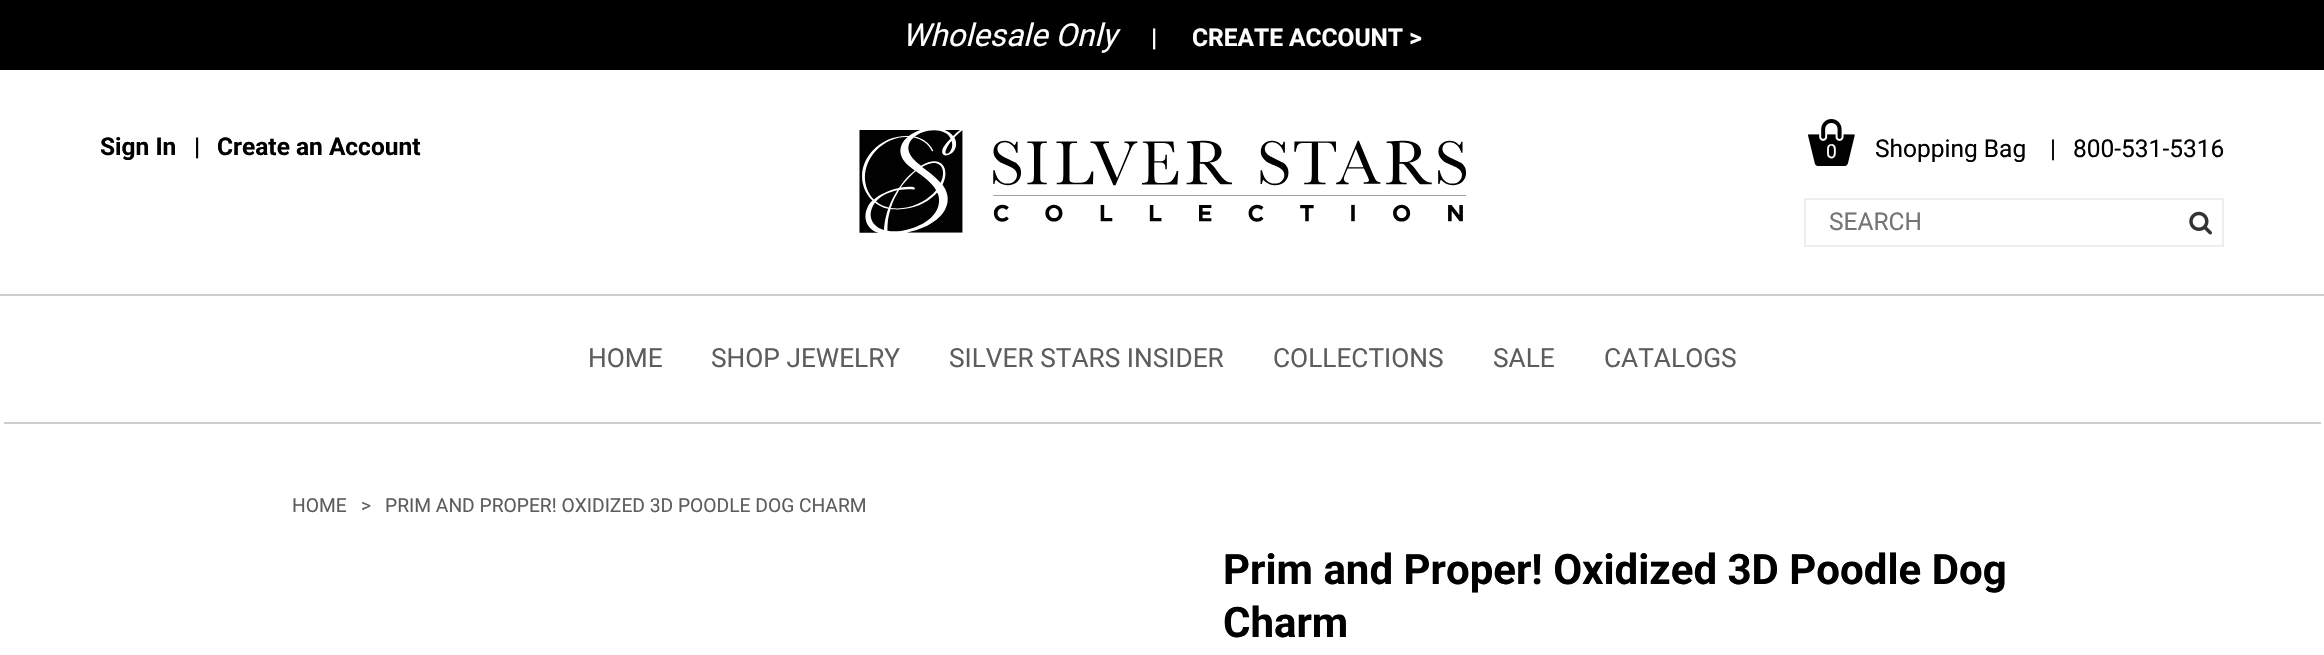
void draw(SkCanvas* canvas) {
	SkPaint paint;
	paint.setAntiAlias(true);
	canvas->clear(0xffffffff);
	paint.setColor(0xff000000);
	canvas->drawRect(SkRect::MakeXYWH(0, 0, 2324, 70), paint);
	SkFont f1(fontMgr->matchFamilyStyle("Roboto", SkFontStyle::Italic()), 31.5);
	f1.setSubpixel(true);
	paint.setColor(0xffffffff);
	canvas->drawString("Wholesale Only", 902, 46, f1, paint);
	SkFont f2(fontMgr->matchFamilyStyle("Roboto", SkFontStyle::Bold()), 24.5);
	f2.setSubpixel(true);
	canvas->drawString("|", 1151, 46, f2, paint);
	canvas->drawString("CREATE ACCOUNT >", 1192, 46, f2, paint);
	paint.setColor(0xffcecece);
	canvas->drawRect(SkRect::MakeXYWH(0, 294, 2324, 2), paint);
	paint.setColor(0xff000000);
	canvas->drawString("Sign In", 100, 155, f2, paint);
	canvas->drawString("|", 194, 155, f2, paint);
	canvas->drawString("Create an Account", 217, 155, f2, paint);
	canvas->drawImageRect(SkImages::DeferredFromEncodedData(SkData::MakeFromFileName("img1.png")), SkRect::MakeXYWH(859, 130, 608, 103), SkSamplingOptions());
	canvas->drawImageRect(SkImages::DeferredFromEncodedData(SkData::MakeFromFileName("img2.png")), SkRect::MakeXYWH(1808, 119, 47, 47), SkSamplingOptions());
	SkFont f3(fontMgr->matchFamilyStyle("Roboto", SkFontStyle::Normal()), 19.25);
	f3.setSubpixel(true);
	paint.setColor(0xffffffff);
	canvas->drawString("0", 1826, 158, f3, paint);
	SkFont f4(fontMgr->matchFamilyStyle("Roboto", SkFontStyle::Normal()), 24.5);
	f4.setSubpixel(true);
	paint.setColor(0xff000000);
	canvas->drawString("Shopping Bag", 1875, 157, f4, paint);
	canvas->drawString("|", 2050, 157, f4, paint);
	canvas->drawString("800-531-5316", 2073, 157, f4, paint);
	paint.setStroke(true);
	paint.setStrokeWidth(2);
	paint.setColor(0xffeeeeee);
	canvas->drawRect(SkRect::MakeXYWH(1805, 199, 418, 47), paint);
	paint.setStroke(false);
	paint.setColor(0xff757575);
	canvas->drawString("SEARCH", 1829, 230, f4, paint);
	canvas->drawImageRect(SkImages::DeferredFromEncodedData(SkData::MakeFromFileName("img3.png")), SkRect::MakeXYWH(2189, 211, 23, 24), SkSamplingOptions());
	paint.setColor(0xffcecece);
	canvas->drawRect(SkRect::MakeXYWH(4, 422, 2317, 2), paint);
	SkFont f5(fontMgr->matchFamilyStyle("Roboto", SkFontStyle::Normal()), 26.25);
	f5.setSubpixel(true);
	paint.setColor(0xff5d5d5d);
	canvas->drawString("HOME", 588, 367, f5, paint);
	canvas->drawString("SHOP JEWELRY", 711, 367, f5, paint);
	canvas->drawString("SILVER STARS INSIDER", 949, 367, f5, paint);
	canvas->drawString("COLLECTIONS", 1273, 367, f5, paint);
	canvas->drawString("SALE", 1493, 367, f5, paint);
	canvas->drawString("CATALOGS", 1604, 367, f5, paint);
	canvas->drawString("HOME", 292, 512, f3, paint);
	canvas->drawString(">", 361, 512, f3, paint);
	canvas->drawString("PRIM AND PROPER! OXIDIZED 3D POODLE DOG CHARM", 385, 512, f3, paint);
	SkFont f6(fontMgr->matchFamilyStyle("Roboto", SkFontStyle::Bold()), 42);
	f6.setSubpixel(true);
	paint.setColor(0xff000000);
	canvas->drawString("Prim and Proper! Oxidized 3D Poodle Dog", 1223, 584, f6, paint);
	canvas->drawString("Charm", 1223, 637, f6, paint);
}
